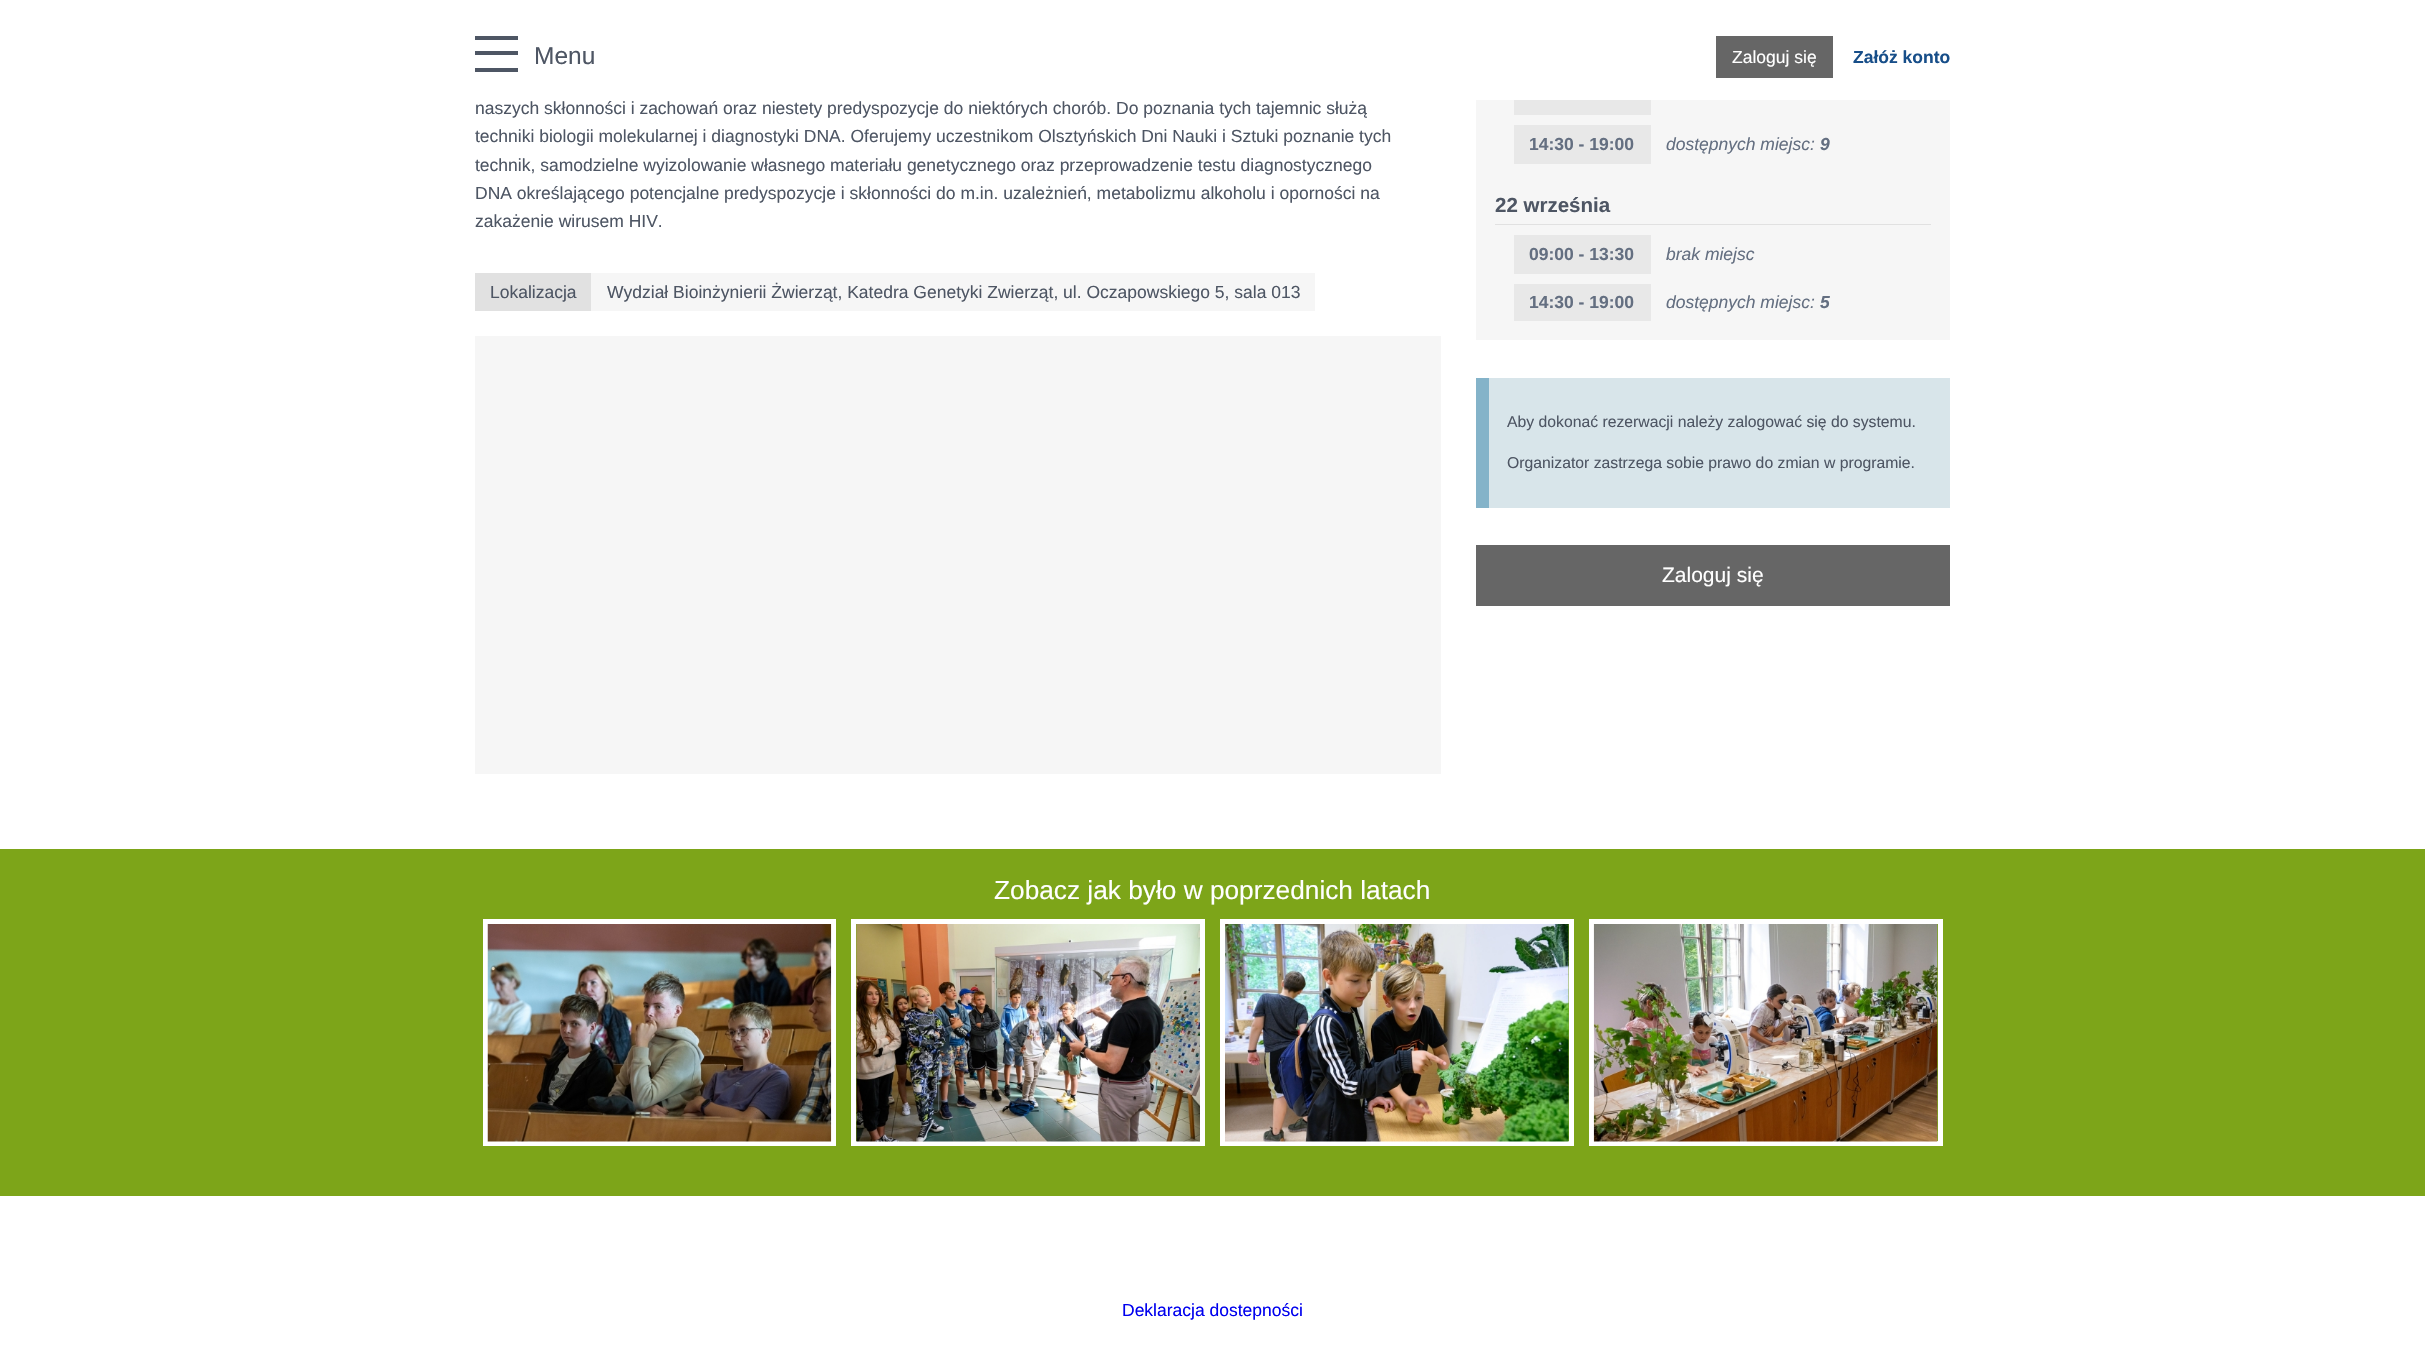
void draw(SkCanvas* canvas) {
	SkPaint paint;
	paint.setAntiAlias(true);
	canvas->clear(0xffffffff);
	paint.setColor(0xff4e5664);
	canvas->drawRect(SkRect::MakeXYWH(475, 36, 43, 4), paint);
	canvas->drawRect(SkRect::MakeXYWH(475, 51, 43, 4), paint);
	SkFont f1(fontMgr->matchFamilyStyle("Liberation Sans", SkFontStyle::Normal()), 24.5);
	f1.setSubpixel(true);
	canvas->drawString("Menu", 534, 64, f1, paint);
	canvas->drawRect(SkRect::MakeXYWH(475, 68, 43, 4), paint);
	paint.setColor(0xff666666);
	canvas->drawRect(SkRect::MakeXYWH(1716, 36, 117, 42), paint);
	SkFont f2(fontMgr->matchFamilyStyle("Liberation Sans", SkFontStyle::Normal()), 17.5);
	f2.setSubpixel(true);
	paint.setColor(0xffffffff);
	canvas->drawString("Zaloguj się", 1732, 63, f2, paint);
	SkFont f3(fontMgr->matchFamilyStyle("Liberation Sans", SkFontStyle::Bold()), 17.5);
	f3.setSubpixel(true);
	paint.setColor(0xff174e89);
	canvas->drawString("Załóż konto", 1853, 63, f3, paint);
	paint.setColor(0xff4e5664);
	canvas->drawString("naszych skłonności i zachowań oraz niestety predyspozycje do niektórych chorób. Do poznania tych tajemnic służą", 475, 114, f2, paint);
	canvas->drawString("techniki biologii molekularnej i diagnostyki DNA. Oferujemy uczestnikom Olsztyńskich Dni Nauki i Sztuki poznanie tych", 475, 142, f2, paint);
	canvas->drawString("technik, samodzielne wyizolowanie własnego materiału genetycznego oraz przeprowadzenie testu diagnostycznego", 475, 171, f2, paint);
	canvas->drawString("DNA określającego potencjalne predyspozycje i skłonności do m.in. uzależnień, metabolizmu alkoholu i oporności na", 475, 199, f2, paint);
	canvas->drawString("zakażenie wirusem HIV.", 475, 227, f2, paint);
	paint.setColor(0xffe1e1e1);
	canvas->drawRect(SkRect::MakeXYWH(475, 273, 116, 38), paint);
	paint.setColor(0xff4e5664);
	canvas->drawString("Lokalizacja", 490, 298, f2, paint);
	paint.setColor(0xfff6f6f6);
	canvas->drawRect(SkRect::MakeXYWH(591, 273, 724, 38), paint);
	paint.setColor(0xff4e5664);
	canvas->drawString("Wydział Bioinżynierii Żwierząt, Katedra Genetyki Zwierząt, ul. Oczapowskiego 5, sala 013", 607, 298, f2, paint);
	paint.setColor(0xfff6f6f6);
	canvas->drawRect(SkRect::MakeXYWH(475, 336, 966, 438), paint);
	canvas->drawRect(SkRect::MakeXYWH(1476, 100, 474, 240), paint);
	paint.setColor(0xffe8e8e8);
	canvas->drawRect(SkRect::MakeXYWH(1514, 100, 137, 15), paint);
	canvas->drawRect(SkRect::MakeXYWH(1514, 125, 137, 39), paint);
	paint.setColor(0xff646f81);
	canvas->drawString("14:30 - 19:00", 1529, 150, f3, paint);
	SkFont f4(fontMgr->matchFamilyStyle("Liberation Sans", SkFontStyle::Italic()), 17.5);
	f4.setSubpixel(true);
	canvas->drawString("dostępnych miejsc:", 1666, 150, f4, paint);
	SkFont f5(fontMgr->matchFamilyStyle("Liberation Sans", SkFontStyle::BoldItalic()), 17.5);
	f5.setSubpixel(true);
	canvas->drawString("9", 1820, 150, f5, paint);
	paint.setColor(0xffe1e1e1);
	canvas->drawRect(SkRect::MakeXYWH(1495, 224, 436, 1), paint);
	SkFont f6(fontMgr->matchFamilyStyle("Liberation Sans", SkFontStyle::Bold()), 20.5);
	f6.setSubpixel(true);
	paint.setColor(0xff4e5664);
	canvas->drawString("22 września", 1495, 212, f6, paint);
	paint.setColor(0xffe8e8e8);
	canvas->drawRect(SkRect::MakeXYWH(1514, 235, 137, 39), paint);
	paint.setColor(0xff646f81);
	canvas->drawString("09:00 - 13:30", 1529, 260, f3, paint);
	canvas->drawString("brak miejsc", 1666, 260, f4, paint);
	paint.setColor(0xffe8e8e8);
	canvas->drawRect(SkRect::MakeXYWH(1514, 284, 137, 37), paint);
	paint.setColor(0xff646f81);
	canvas->drawString("14:30 - 19:00", 1529, 308, f3, paint);
	canvas->drawString("dostępnych miejsc:", 1666, 308, f4, paint);
	canvas->drawString("5", 1820, 308, f5, paint);
	paint.setColor(0xffd8e5ea);
	canvas->drawRect(SkRect::MakeXYWH(1489, 378, 461, 130), paint);
	paint.setColor(0xff84b3c9);
	canvas->drawRect(SkRect::MakeXYWH(1476, 378, 13, 130), paint);
	SkFont f7(fontMgr->matchFamilyStyle("Liberation Sans", SkFontStyle::Normal()), 15.75);
	f7.setSubpixel(true);
	paint.setColor(0xff4e5664);
	canvas->drawString("Aby dokonać rezerwacji należy zalogować się do systemu.", 1507, 427, f7, paint);
	canvas->drawString("Organizator zastrzega sobie prawo do zmian w programie.", 1507, 468, f7, paint);
	paint.setColor(0xff666666);
	canvas->drawRect(SkRect::MakeXYWH(1476, 545, 474, 61), paint);
	SkFont f8(fontMgr->matchFamilyStyle("Liberation Sans", SkFontStyle::Normal()), 21);
	f8.setSubpixel(true);
	paint.setColor(0xffffffff);
	canvas->drawString("Zaloguj się", 1662, 582, f8, paint);
	paint.setColor(0xff7da519);
	canvas->drawRect(SkRect::MakeXYWH(0, 849, 2425, 347), paint);
	SkFont f9(fontMgr->matchFamilyStyle("Liberation Sans", SkFontStyle::Normal()), 26.25);
	f9.setSubpixel(true);
	paint.setColor(0xffffffff);
	canvas->drawString("Zobacz jak było w poprzednich latach", 994, 899, f9, paint);
	paint.setStroke(true);
	paint.setStrokeWidth(5);
	canvas->drawRect(SkRect::MakeXYWH(485.5, 921.5, 348, 222), paint);
	canvas->drawImageRect(SkImages::DeferredFromEncodedData(SkData::MakeFromFileName("img1.png")), SkRect::MakeXYWH(487, 924, 345, 218), SkSamplingOptions());
	canvas->drawRect(SkRect::MakeXYWH(853.5, 921.5, 349, 222), paint);
	canvas->drawImageRect(SkImages::DeferredFromEncodedData(SkData::MakeFromFileName("img2.png")), SkRect::MakeXYWH(856, 924, 344, 218), SkSamplingOptions());
	canvas->drawRect(SkRect::MakeXYWH(1222.5, 921.5, 349, 222), paint);
	canvas->drawImageRect(SkImages::DeferredFromEncodedData(SkData::MakeFromFileName("img3.png")), SkRect::MakeXYWH(1225, 924, 344, 218), SkSamplingOptions());
	canvas->drawRect(SkRect::MakeXYWH(1591.5, 921.5, 349, 222), paint);
	canvas->drawImageRect(SkImages::DeferredFromEncodedData(SkData::MakeFromFileName("img4.png")), SkRect::MakeXYWH(1593, 924, 345, 218), SkSamplingOptions());
	paint.setStroke(false);
	paint.setColor(0xff0000ee);
	canvas->drawString("Deklaracja dostepności", 1122, 1316, f2, paint);
}
